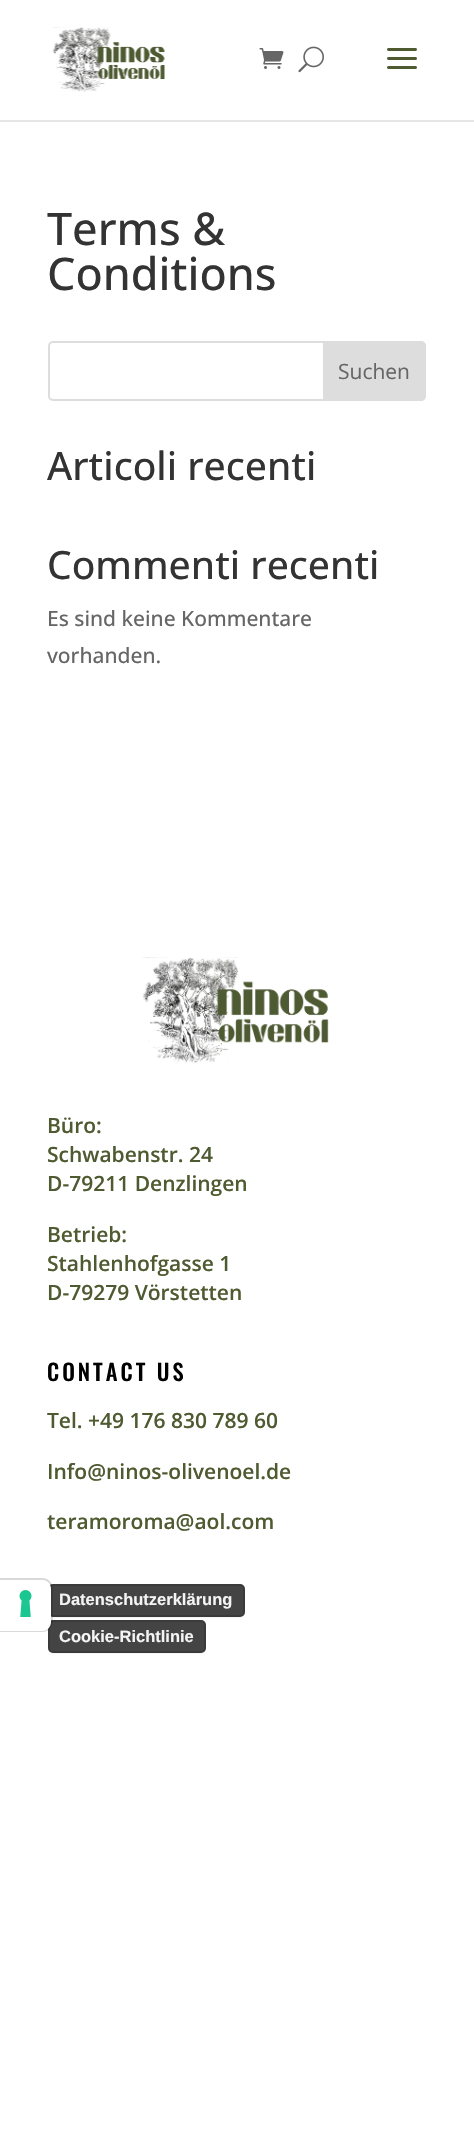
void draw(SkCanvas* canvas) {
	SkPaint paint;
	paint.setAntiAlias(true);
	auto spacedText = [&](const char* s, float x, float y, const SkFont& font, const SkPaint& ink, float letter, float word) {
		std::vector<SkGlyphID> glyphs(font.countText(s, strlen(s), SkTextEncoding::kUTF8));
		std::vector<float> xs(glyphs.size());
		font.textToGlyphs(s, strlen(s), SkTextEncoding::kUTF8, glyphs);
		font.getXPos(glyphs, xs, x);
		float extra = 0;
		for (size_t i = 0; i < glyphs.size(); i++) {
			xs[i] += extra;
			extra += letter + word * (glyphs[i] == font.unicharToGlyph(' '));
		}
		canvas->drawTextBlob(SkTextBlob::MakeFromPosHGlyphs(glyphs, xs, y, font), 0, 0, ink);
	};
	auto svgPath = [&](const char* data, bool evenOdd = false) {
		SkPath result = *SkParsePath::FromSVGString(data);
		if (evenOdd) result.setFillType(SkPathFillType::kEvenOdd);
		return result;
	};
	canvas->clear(0xffffffff);
	paint.setColor(0x26000000);
	paint.setMaskFilter(SkMaskFilter::MakeBlur(kNormal_SkBlurStyle, 1));
	canvas->drawRoundRect(SkRect::MakeXYWH(50, 1587, 193, 30), 3, 3, paint);
	paint.setMaskFilter(nullptr);
	paint.setColor(0xff444444);
	canvas->drawRoundRect(SkRect::MakeXYWH(48, 1584, 197, 33), 5, 5, paint);
	paint.setStroke(true);
	paint.setStrokeWidth(2);
	paint.setColor(0x26000000);
	canvas->drawRoundRect(SkRect::MakeXYWH(49, 1585, 195, 31), 4, 4, paint);
	paint.setStroke(false);
	paint.setMaskFilter(SkMaskFilter::MakeBlur(kNormal_SkBlurStyle, 1));
	canvas->drawRoundRect(SkRect::MakeXYWH(50, 1623, 154, 30), 3, 3, paint);
	paint.setMaskFilter(nullptr);
	paint.setColor(0xff444444);
	canvas->drawRoundRect(SkRect::MakeXYWH(48, 1620, 158, 33), 5, 5, paint);
	paint.setStroke(true);
	paint.setColor(0x26000000);
	canvas->drawRoundRect(SkRect::MakeXYWH(49, 1621, 156, 31), 4, 4, paint);
	canvas->drawPath(svgPath("M0 1579H42C47.5 1579 52 1583.5 52 1589V1621C52 1626.5 47.5 1631 42 1631H0Z"), paint);
	paint.setStroke(false);
	paint.setColor(0xffffffff);
	canvas->drawPath(svgPath("M0 1580H42C47 1580 51 1584 51 1589V1622C51 1627 47 1631 42 1631H0Z"), paint);
	canvas->drawImageRect(SkImages::DeferredFromEncodedData(SkData::MakeFromFileName("img1.png")), SkRect::MakeXYWH(19, 1590, 13, 27), SkSamplingOptions());
	paint.setColor(0xffe6e6e6);
	canvas->drawRect(SkRect::MakeXYWH(0, 120, 474, 2), paint);
	canvas->drawImageRect(SkImages::DeferredFromEncodedData(SkData::MakeFromFileName("img2.png")), SkRect::MakeXYWH(52, 27, 113, 65), SkSamplingOptions());
	canvas->drawImageRect(SkImages::DeferredFromEncodedData(SkData::MakeFromFileName("img3.png")), SkRect::MakeXYWH(259, 48, 25, 21), SkSamplingOptions());
	canvas->drawImageRect(SkImages::DeferredFromEncodedData(SkData::MakeFromFileName("img4.png")), SkRect::MakeXYWH(298, 46, 26, 27), SkSamplingOptions());
	canvas->drawImageRect(SkImages::DeferredFromEncodedData(SkData::MakeFromFileName("img5.png")), SkRect::MakeXYWH(387, 48, 30, 21), SkSamplingOptions());
	SkFont f1(fontMgr->matchFamilyStyle("Open Sans", SkFontStyle(500, SkFontStyle::kNormal_Width, SkFontStyle::kUpright_Slant)), 45);
	f1.setSubpixel(true);
	paint.setColor(0xff333333);
	canvas->drawString("Terms &", 47, 245, f1, paint);
	canvas->drawString("Conditions", 47, 290, f1, paint);
	paint.setStroke(true);
	paint.setColor(0xffdddddd);
	canvas->drawRoundRect(SkRect::MakeXYWH(49, 342, 376, 58), 4, 4, paint);
	paint.setStroke(false);
	canvas->drawPath(svgPath("M324 342H421C423 342 425 344 425 346V396C425 398 423 400 421 400H324Z"), paint);
	paint.setStroke(true);
	canvas->drawPath(svgPath("M324 342H421C423 342 425 344 425 346V396C425 398 423 400 421 400H324Z"), paint);
	SkFont f2(fontMgr->matchFamilyStyle("Open Sans", SkFontStyle::Normal()), 21);
	f2.setSubpixel(true);
	paint.setStroke(false);
	paint.setColor(0xff666666);
	canvas->drawString("Suchen", 338, 379, f2, paint);
	SkFont f3(fontMgr->matchFamilyStyle("Open Sans", SkFontStyle(500, SkFontStyle::kNormal_Width, SkFontStyle::kUpright_Slant)), 39);
	f3.setSubpixel(true);
	paint.setColor(0xff333333);
	canvas->drawString("Articoli recenti", 47, 480, f3, paint);
	canvas->drawString("Commenti recenti", 47, 579, f3, paint);
	SkFont f4(fontMgr->matchFamilyStyle("Open Sans", SkFontStyle(500, SkFontStyle::kNormal_Width, SkFontStyle::kUpright_Slant)), 21);
	f4.setSubpixel(true);
	paint.setColor(0xff666666);
	canvas->drawString("Es sind keine Kommentare", 47, 626, f4, paint);
	canvas->drawString("vorhanden.", 47, 663, f4, paint);
	canvas->drawImageRect(SkImages::DeferredFromEncodedData(SkData::MakeFromFileName("img6.png")), SkRect::MakeXYWH(142, 957, 187, 107), SkSamplingOptions());
	SkFont f5(fontMgr->matchFamilyStyle("Open Sans", SkFontStyle(600, SkFontStyle::kNormal_Width, SkFontStyle::kUpright_Slant)), 21);
	f5.setSubpixel(true);
	paint.setColor(0xff4e5a30);
	canvas->drawString("Büro:", 47, 1133, f5, paint);
	canvas->drawString("Schwabenstr. 24", 47, 1162, f5, paint);
	canvas->drawString("D-79211 Denzlingen", 47, 1191, f5, paint);
	canvas->drawString("Betrieb:", 47, 1242, f5, paint);
	canvas->drawString("Stahlenhofgasse 1", 47, 1271, f5, paint);
	canvas->drawString("D-79279 Vörstetten", 47, 1300, f5, paint);
	SkFont f6(fontMgr->matchFamilyStyle("Oswald", SkFontStyle(500, SkFontStyle::kNormal_Width, SkFontStyle::kUpright_Slant)), 22.5);
	f6.setSubpixel(true);
	paint.setColor(0xff000000);
	spacedText("CONTACT US", 47, 1381, f6, paint, 3, 0);
	paint.setColor(0xff4e5a30);
	canvas->drawString("Tel. +49 176 830 789 60", 47, 1428, f5, paint);
	canvas->drawString("Info@ninos-olivenoel.de", 47, 1479, f5, paint);
	canvas->drawString("teramoroma@aol.com", 47, 1529, f5, paint);
	SkFont f7(fontMgr->matchFamilyStyle("Liberation Sans", SkFontStyle::Bold()), 16.5);
	f7.setSubpixel(true);
	paint.setColor(0xfff4f4f4);
	canvas->drawString("Datenschutzerklärung", 59, 1605, f7, paint);
	canvas->drawString("Cookie-Richtlinie", 59, 1642, f7, paint);
}
